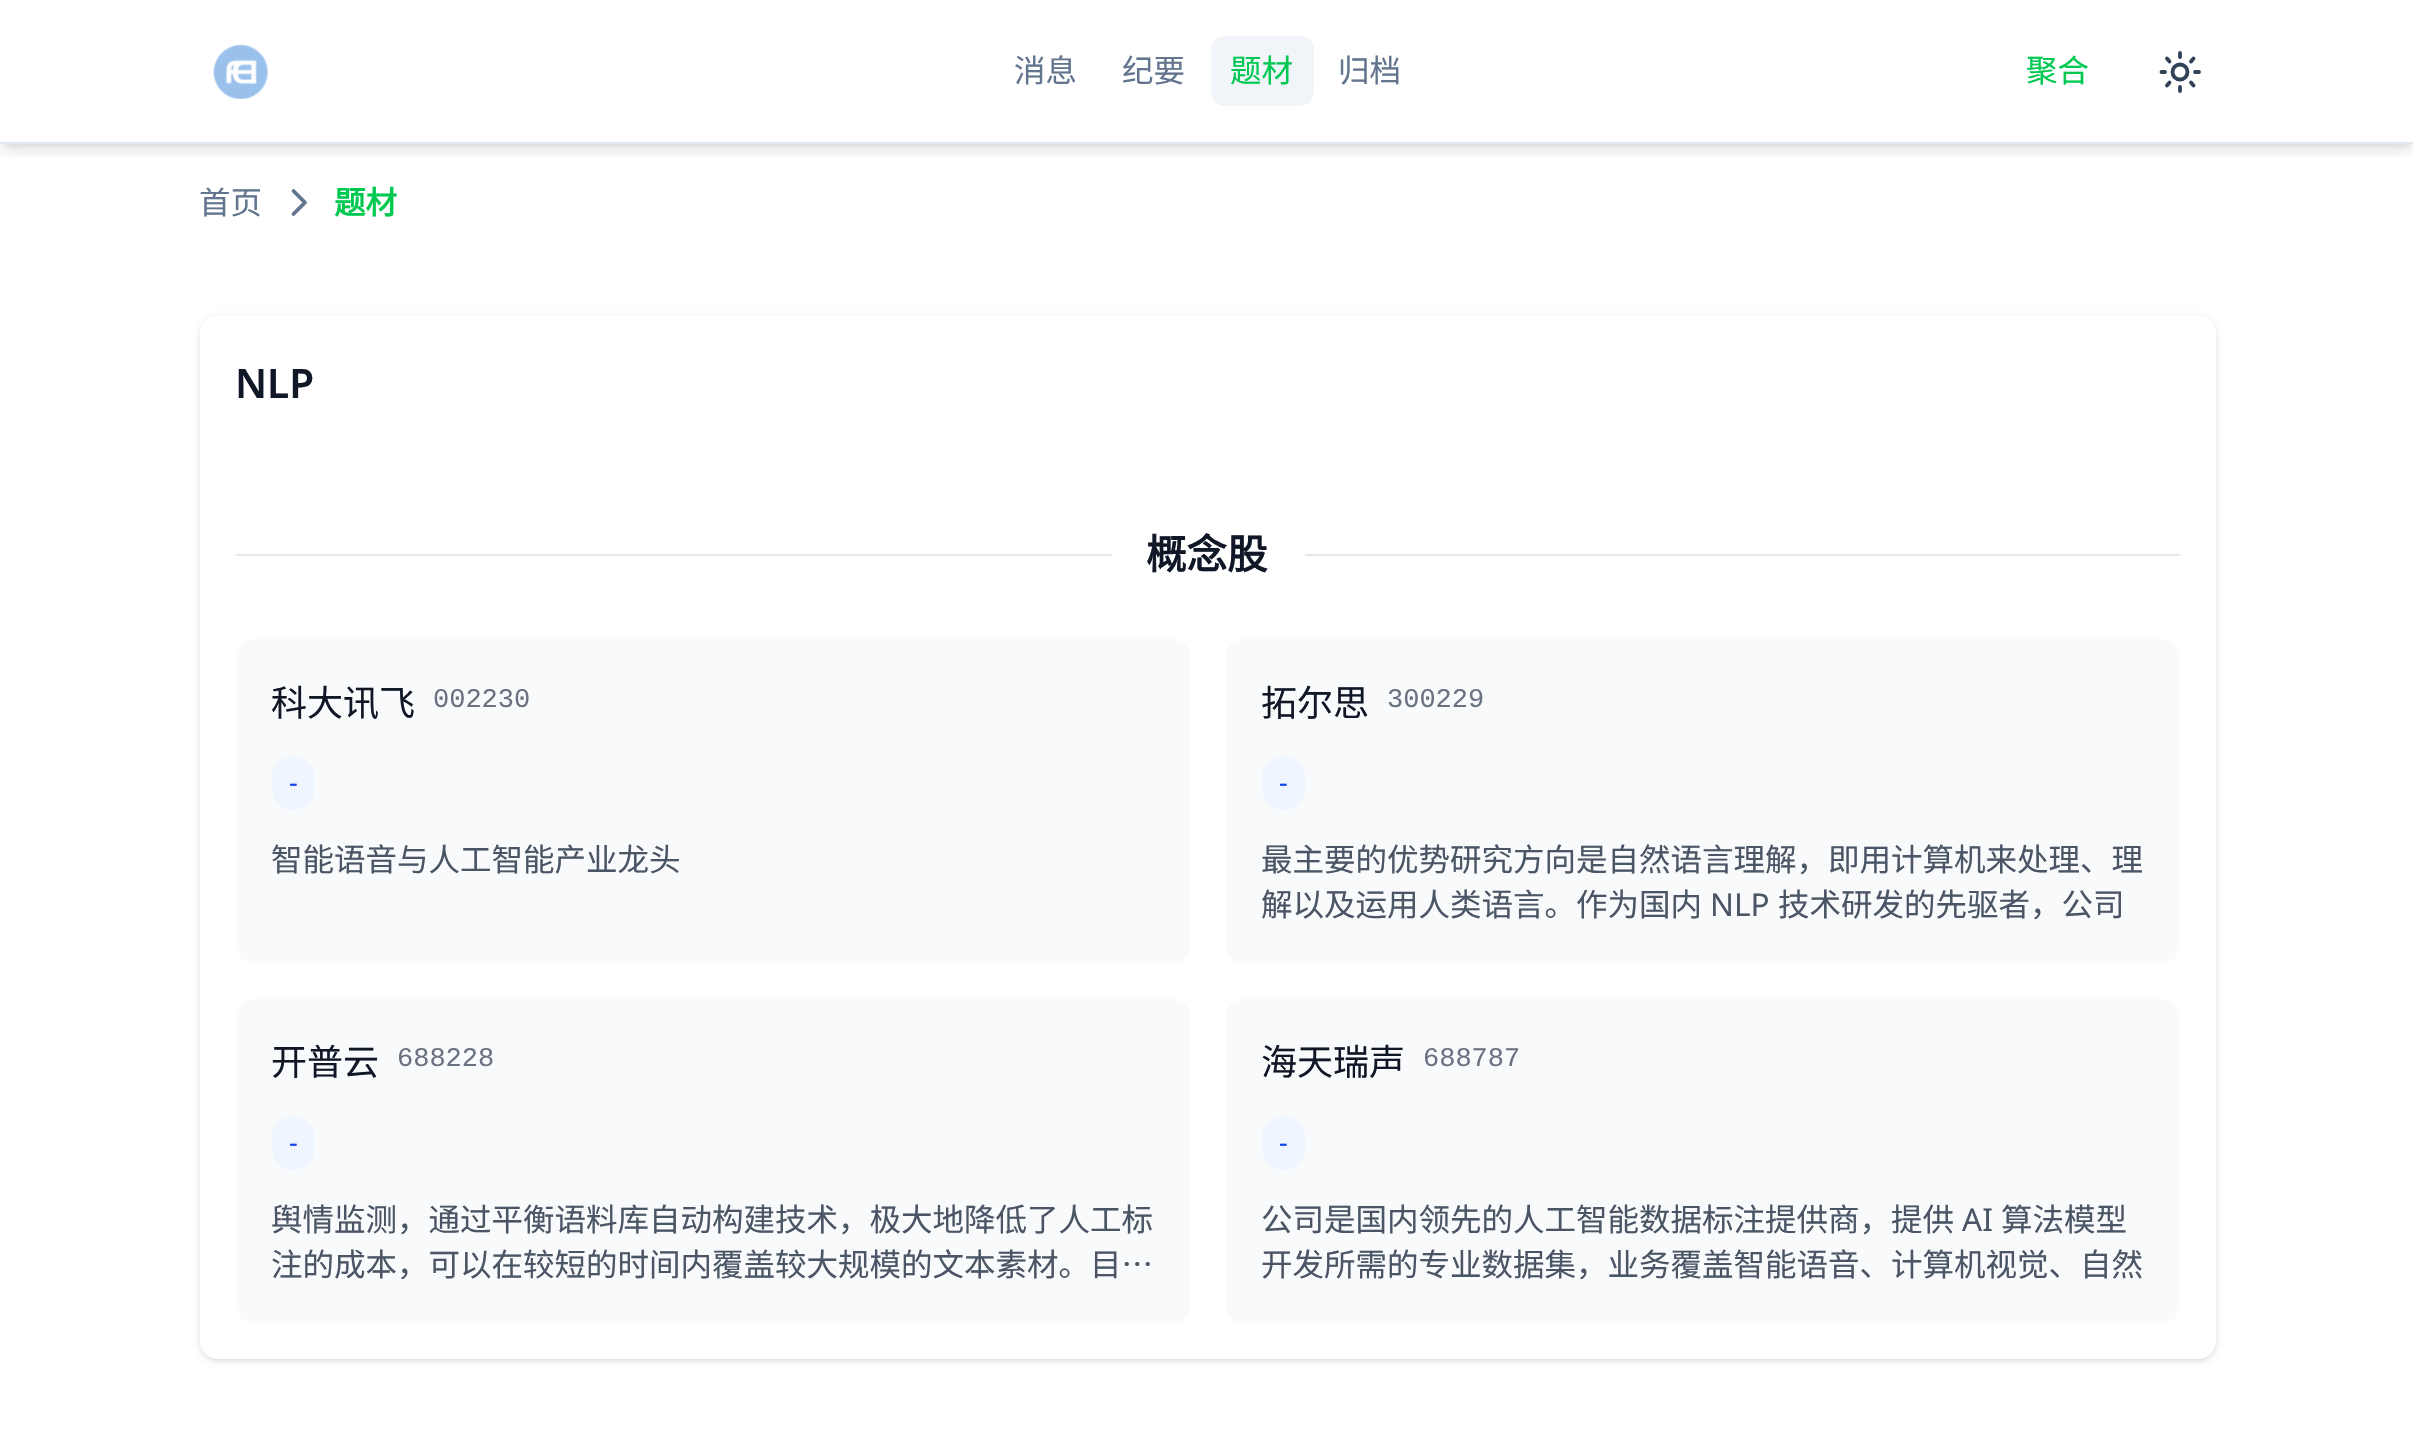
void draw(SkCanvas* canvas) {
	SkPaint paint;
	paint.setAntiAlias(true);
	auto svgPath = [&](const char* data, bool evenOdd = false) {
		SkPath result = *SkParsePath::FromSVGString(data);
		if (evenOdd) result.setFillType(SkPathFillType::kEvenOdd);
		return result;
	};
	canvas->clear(0xffffffff);
	canvas->save();
	canvas->clipRect(SkRect::MakeXYWH(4, 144, 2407, 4));
	paint.setColor(0x1a000000);
	paint.setMaskFilter(SkMaskFilter::MakeBlur(kNormal_SkBlurStyle, 4.5));
	canvas->drawRect(SkRect::MakeXYWH(5, 9, 2405, 135), paint);
	paint.setMaskFilter(nullptr);
	canvas->restore();
	canvas->save();
	canvas->clipRect(SkRect::MakeXYWH(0, 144, 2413, 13));
	paint.setMaskFilter(SkMaskFilter::MakeBlur(kNormal_SkBlurStyle, 7));
	canvas->drawRect(SkRect::MakeXYWH(2, 11, 2410, 140), paint);
	paint.setMaskFilter(nullptr);
	canvas->restore();
	paint.setColor(0xffe2e8f0);
	canvas->drawRect(SkRect::MakeXYWH(0, 142, 2413, 2), paint);
	canvas->drawImageRect(SkImages::DeferredFromEncodedData(SkData::MakeFromFileName("img1.png")), SkRect::MakeXYWH(213, 44, 55, 55), SkSamplingOptions());
	SkFont f1(fontMgr->matchFamilyStyle("Noto Sans CJK SC", SkFontStyle::Normal()), 31.5);
	f1.setSubpixel(true);
	paint.setColor(0xff62748e);
	canvas->drawString("消息", 1014, 82, f1, paint);
	canvas->drawString("纪要", 1122, 82, f1, paint);
	paint.setColor(0xfff1f5f9);
	canvas->drawRoundRect(SkRect::MakeXYWH(1211, 36, 103, 70), 14, 14, paint);
	paint.setColor(0xff00c951);
	canvas->drawString("题材", 1230, 82, f1, paint);
	paint.setColor(0xff62748e);
	canvas->drawString("归档", 1338, 82, f1, paint);
	paint.setColor(0xff00c951);
	canvas->drawString("聚合", 2026, 82, f1, paint);
	paint.setStroke(true);
	paint.setStrokeWidth(3.8);
	paint.setColor(0xff314158);
	canvas->drawCircle(2180, 72, 7.5, paint);
	paint.setStrokeCap(SkPaint::kRound_Cap);
	paint.setStrokeJoin(SkPaint::kRound_Join);
	canvas->drawPath(svgPath("M2180 53V57M2180 87V91M2167 58.5L2169.5 61.5M2191 82.5L2193.5 85.5M2161.5 72H2165M2195 72H2199M2169.5 82.5L2167 85.5M2193.5 58.5L2191 61.5"), paint);
	paint.setStroke(false);
	paint.setColor(0xff62748e);
	canvas->drawString("首页", 199, 214, f1, paint);
	paint.setStroke(true);
	canvas->drawPath(svgPath("M293.5 214L305 202.5L293.5 191"), paint);
	SkFont f2(fontMgr->matchFamilyStyle("Noto Sans CJK SC", SkFontStyle::Bold()), 31.5);
	f2.setSubpixel(true);
	paint.setStroke(false);
	paint.setColor(0xff00c951);
	canvas->drawString("题材", 334, 214, f2, paint);
	paint.setColor(0x1a000000);
	paint.setMaskFilter(SkMaskFilter::MakeBlur(kNormal_SkBlurStyle, 2));
	canvas->drawRoundRect(SkRect::MakeXYWH(203, 320, 2011, 1039), 16, 16, paint);
	paint.setMaskFilter(nullptr);
	paint.setMaskFilter(SkMaskFilter::MakeBlur(kNormal_SkBlurStyle, 3.5));
	canvas->drawRoundRect(SkRect::MakeXYWH(200, 317, 2016, 1044), 18, 18, paint);
	paint.setMaskFilter(nullptr);
	paint.setColor(0xffffffff);
	canvas->drawRoundRect(SkRect::MakeXYWH(200, 315, 2016, 1044), 18, 18, paint);
	SkFont f3(fontMgr->matchFamilyStyle("Noto Sans", SkFontStyle(600, SkFontStyle::kNormal_Width, SkFontStyle::kUpright_Slant)), 40.5);
	f3.setSubpixel(true);
	paint.setColor(0xff101828);
	canvas->drawString("NLP", 235, 398, f3, paint);
	paint.setColor(0xffe5e7eb);
	canvas->drawRect(SkRect::MakeXYWH(236, 554, 876, 2), paint);
	SkFont f4(fontMgr->matchFamilyStyle("Noto Sans CJK SC", SkFontStyle::Bold()), 40.5);
	f4.setSubpixel(true);
	paint.setColor(0xff101828);
	canvas->drawString("概念股", 1146, 569, f4, paint);
	paint.setColor(0xffe5e7eb);
	canvas->drawRect(SkRect::MakeXYWH(1305, 554, 875, 2), paint);
	paint.setColor(0xfff9fafb);
	canvas->drawRoundRect(SkRect::MakeXYWH(236, 639, 954, 324), 18, 18, paint);
	SkFont f5(fontMgr->matchFamilyStyle("Noto Sans CJK SC", SkFontStyle::Normal()), 36);
	f5.setSubpixel(true);
	paint.setColor(0xff101828);
	canvas->drawString("科大讯飞", 271, 716, f5, paint);
	SkFont f6(fontMgr->matchFamilyStyle("Liberation Mono", SkFontStyle::Normal()), 27);
	f6.setSubpixel(true);
	paint.setColor(0xff6a7282);
	canvas->drawString("002230", 433, 707, f6, paint);
	paint.setColor(0xffeff6ff);
	canvas->drawRoundRect(SkRect::MakeXYWH(272, 756, 43, 54), 21.5, 21.5, paint);
	SkFont f7(fontMgr->matchFamilyStyle("Noto Sans", SkFontStyle::Normal()), 27);
	f7.setSubpixel(true);
	paint.setColor(0xff1447e6);
	canvas->drawString("-", 289, 792, f7, paint);
	paint.setColor(0xff4a5565);
	canvas->drawString("智能语音与人工智能产业龙头", 271, 871, f1, paint);
	paint.setColor(0xfff9fafb);
	canvas->drawRoundRect(SkRect::MakeXYWH(1226, 639, 954, 324), 18, 18, paint);
	paint.setColor(0xff101828);
	canvas->drawString("拓尔思", 1261, 716, f5, paint);
	paint.setColor(0xff6a7282);
	canvas->drawString("300229", 1387, 707, f6, paint);
	paint.setColor(0xffeff6ff);
	canvas->drawRoundRect(SkRect::MakeXYWH(1262, 756, 43, 54), 21.5, 21.5, paint);
	paint.setColor(0xff1447e6);
	canvas->drawString("-", 1279, 792, f7, paint);
	paint.setColor(0xff4a5565);
	canvas->drawString("最主要的优势研究方向是自然语言理解，即用计算机来处理、理", 1261, 871, f1, paint);
	canvas->drawString("解以及运用人类语言。作为国内", 1261, 916, f1, paint);
	SkFont f8(fontMgr->matchFamilyStyle("Noto Sans", SkFontStyle::Normal()), 31.5);
	f8.setSubpixel(true);
	canvas->drawString("NLP", 1710, 916, f8, paint);
	canvas->drawString("技术研发的先驱者，公司", 1778, 916, f1, paint);
	paint.setColor(0xfff9fafb);
	canvas->drawRoundRect(SkRect::MakeXYWH(236, 999, 954, 324), 18, 18, paint);
	paint.setColor(0xff101828);
	canvas->drawString("开普云", 271, 1075, f5, paint);
	paint.setColor(0xff6a7282);
	canvas->drawString("688228", 397, 1066, f6, paint);
	paint.setColor(0xffeff6ff);
	canvas->drawRoundRect(SkRect::MakeXYWH(272, 1116, 43, 54), 21.5, 21.5, paint);
	paint.setColor(0xff1447e6);
	canvas->drawString("-", 289, 1152, f7, paint);
	paint.setColor(0xff4a5565);
	canvas->drawString("舆情监测，通过平衡语料库自动构建技术，极大地降低了人工标", 271, 1231, f1, paint);
	canvas->drawString("注的成本，可以在较短的时间内覆盖较大规模的文本素材。目…", 271, 1276, f1, paint);
	paint.setColor(0xfff9fafb);
	canvas->drawRoundRect(SkRect::MakeXYWH(1226, 999, 954, 324), 18, 18, paint);
	paint.setColor(0xff101828);
	canvas->drawString("海天瑞声", 1261, 1075, f5, paint);
	paint.setColor(0xff6a7282);
	canvas->drawString("688787", 1423, 1066, f6, paint);
	paint.setColor(0xffeff6ff);
	canvas->drawRoundRect(SkRect::MakeXYWH(1262, 1116, 43, 54), 21.5, 21.5, paint);
	paint.setColor(0xff1447e6);
	canvas->drawString("-", 1279, 1152, f7, paint);
	paint.setColor(0xff4a5565);
	canvas->drawString("公司是国内领先的人工智能数据标注提供商，提供", 1261, 1231, f1, paint);
	canvas->drawString("AI", 1962, 1231, f8, paint);
	canvas->drawString("算法模型", 2001, 1231, f1, paint);
	canvas->drawString("开发所需的专业数据集，业务覆盖智能语音、计算机视觉、自然", 1261, 1276, f1, paint);
}
